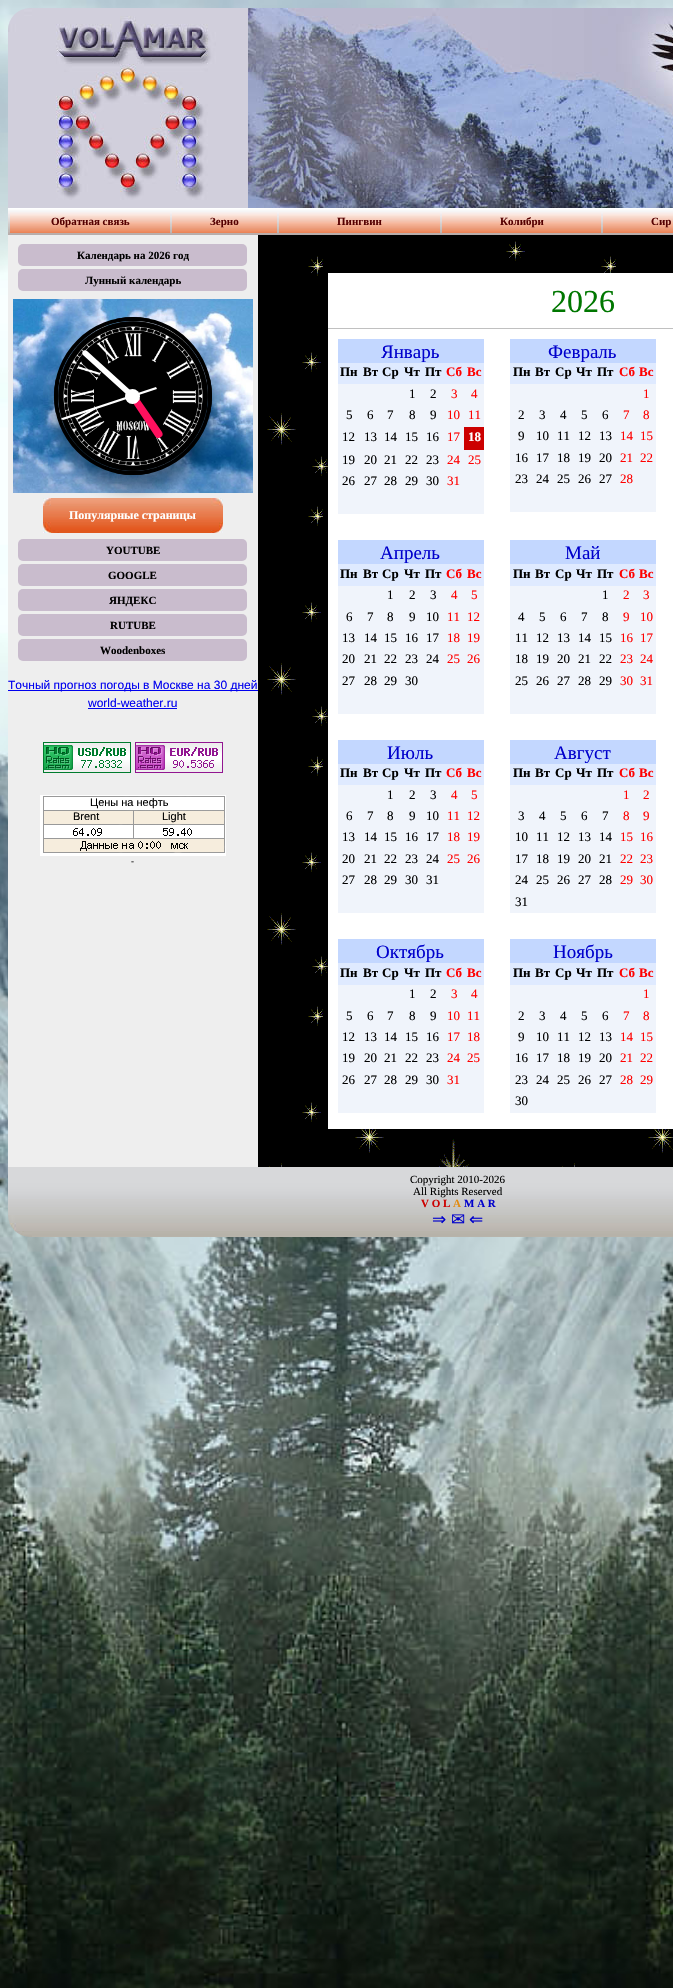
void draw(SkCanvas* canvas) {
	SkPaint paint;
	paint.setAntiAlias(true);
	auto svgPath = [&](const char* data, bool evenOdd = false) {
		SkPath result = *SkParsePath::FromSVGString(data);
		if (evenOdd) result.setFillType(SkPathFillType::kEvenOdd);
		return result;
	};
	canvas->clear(0xffffffff);
	canvas->drawImageRect(SkImages::DeferredFromEncodedData(SkData::MakeFromFileName("img1.png")), SkRect::MakeXYWH(0, 0, 673, 1988), SkSamplingOptions());
	canvas->drawImageRect(SkImages::DeferredFromEncodedData(SkData::MakeFromFileName("img2.png")), SkRect::MakeXYWH(8, 8, 665, 200), SkSamplingOptions());
	canvas->drawImageRect(SkImages::DeferredFromEncodedData(SkData::MakeFromFileName("img3.png")), SkRect::MakeXYWH(8, 208, 665, 27), SkSamplingOptions());
	canvas->drawImageRect(SkImages::DeferredFromEncodedData(SkData::MakeFromFileName("img4.png")), SkRect::MakeXYWH(10, 212, 160, 21), SkSamplingOptions());
	SkFont f1(fontMgr->matchFamilyStyle("Liberation Serif", SkFontStyle::Bold()), 11);
	f1.setSubpixel(true);
	paint.setColor(0xff550000);
	canvas->drawString("Обратная связь", 51, 225, f1, paint);
	canvas->drawImageRect(SkImages::DeferredFromEncodedData(SkData::MakeFromFileName("img5.png")), SkRect::MakeXYWH(172, 212, 105, 21), SkSamplingOptions());
	canvas->drawString("Зерно", 210, 225, f1, paint);
	canvas->drawImageRect(SkImages::DeferredFromEncodedData(SkData::MakeFromFileName("img6.png")), SkRect::MakeXYWH(279, 212, 161, 21), SkSamplingOptions());
	canvas->drawString("Пингвин", 337, 225, f1, paint);
	canvas->drawImageRect(SkImages::DeferredFromEncodedData(SkData::MakeFromFileName("img7.png")), SkRect::MakeXYWH(442, 212, 159, 21), SkSamplingOptions());
	canvas->drawString("Колибри", 500, 225, f1, paint);
	canvas->drawImageRect(SkImages::DeferredFromEncodedData(SkData::MakeFromFileName("img8.png")), SkRect::MakeXYWH(603, 212, 70, 21), SkSamplingOptions());
	canvas->drawString("Сир", 651, 225, f1, paint);
	paint.setColor(0xffeeeeee);
	canvas->drawRect(SkRect::MakeXYWH(8, 235, 250, 932), paint);
	paint.setColor(0xffc9bccd);
	canvas->drawRoundRect(SkRect::MakeXYWH(18, 244, 229, 22), 5, 5, paint);
	paint.setColor(0xff000000);
	canvas->drawString("Календарь на 2026 год", 77, 259, f1, paint);
	paint.setColor(0xffc9bccd);
	canvas->drawRoundRect(SkRect::MakeXYWH(18, 269, 229, 22), 5, 5, paint);
	canvas->drawImageRect(SkImages::DeferredFromEncodedData(SkData::MakeFromFileName("img9.png")), SkRect::MakeXYWH(13, 299, 240, 194), SkSamplingOptions());
	paint.setColor(0x0dffffff);
	paint.setMaskFilter(SkMaskFilter::MakeBlur(kNormal_SkBlurStyle, 7.5));
	canvas->drawRoundRect(SkRect::MakeXYWH(54, 302, 158, 158), 79, 79, paint);
	paint.setMaskFilter(nullptr);
	paint.setColor(0xff000000);
	canvas->drawString("Лунный календарь", 85, 284, f1, paint);
	paint.setColor(0x4d000000);
	paint.setMaskFilter(SkMaskFilter::MakeBlur(kNormal_SkBlurStyle, 7.5));
	canvas->drawRoundRect(SkRect::MakeXYWH(54, 332, 158, 158), 79, 79, paint);
	paint.setMaskFilter(nullptr);
	canvas->drawImageRect(SkImages::DeferredFromEncodedData(SkData::MakeFromFileName("img10.png")), SkRect::MakeXYWH(54, 317, 158, 158), SkSamplingOptions());
	paint.setStroke(true);
	paint.setStrokeWidth(4);
	paint.setColor(0xff000000);
	canvas->drawCircle(133, 396, 77, paint);
	paint.setStroke(false);
	paint.setColor(0xffff105e);
	canvas->drawPath(svgPath("M161 437C159 439 156 438 155 436L127 394L133 390L162 432C163 434 163 436 161 437Z"), paint);
	paint.setColor(0xffffffff);
	canvas->drawPath(svgPath("M83 351C84 350 86 350 87 351L140 399L136 403L83 355C82 354 82 352 83 351Z"), paint);
	canvas->drawPath(svgPath("M61 419L62 418L156 387L157 389L63 420Z"), paint);
	canvas->drawCircle(132.5, 396.5, 7.5, paint);
	canvas->drawImageRect(SkImages::DeferredFromEncodedData(SkData::MakeFromFileName("img11.png")), SkRect::MakeXYWH(43, 498, 180, 35), SkSamplingOptions());
	SkFont f2(fontMgr->matchFamilyStyle("Liberation Serif", SkFontStyle::Bold()), 12);
	f2.setSubpixel(true);
	canvas->drawString("Популярные страницы", 69, 519, f2, paint);
	paint.setColor(0xffc9bccd);
	canvas->drawRoundRect(SkRect::MakeXYWH(18, 539, 229, 22), 5, 5, paint);
	paint.setColor(0xff000000);
	canvas->drawString("YOUTUBE", 106, 554, f1, paint);
	paint.setColor(0xffc9bccd);
	canvas->drawRoundRect(SkRect::MakeXYWH(18, 564, 229, 22), 5, 5, paint);
	paint.setColor(0xff000000);
	canvas->drawString("GOOGLE", 108, 579, f1, paint);
	paint.setColor(0xffc9bccd);
	canvas->drawRoundRect(SkRect::MakeXYWH(18, 589, 229, 22), 5, 5, paint);
	paint.setColor(0xff000000);
	canvas->drawString("ЯНДЕКС", 109, 604, f1, paint);
	paint.setColor(0xffc9bccd);
	canvas->drawRoundRect(SkRect::MakeXYWH(18, 614, 229, 22), 5, 5, paint);
	paint.setColor(0xff000000);
	canvas->drawString("RUTUBE", 110, 629, f1, paint);
	paint.setColor(0xffc9bccd);
	canvas->drawRoundRect(SkRect::MakeXYWH(18, 639, 229, 22), 5, 5, paint);
	paint.setColor(0xff000000);
	canvas->drawString("Woodenboxes", 100, 654, f1, paint);
	paint.setColor(0xff0000ee);
	canvas->drawRect(SkRect::MakeXYWH(8, 690, 250, 1), paint);
	SkFont f3(fontMgr->matchFamilyStyle("Liberation Sans", SkFontStyle::Normal()), 12);
	f3.setSubpixel(true);
	canvas->drawString("Точный прогноз погоды в Москве на 30 дней", 8, 689, f3, paint);
	canvas->drawString("world-weather.ru", 88, 707, f3, paint);
	canvas->drawRect(SkRect::MakeXYWH(88, 708, 89, 1), paint);
	canvas->drawImageRect(SkImages::DeferredFromEncodedData(SkData::MakeFromFileName("img12.png")), SkRect::MakeXYWH(43, 742, 88, 31), SkSamplingOptions());
	canvas->drawImageRect(SkImages::DeferredFromEncodedData(SkData::MakeFromFileName("img13.png")), SkRect::MakeXYWH(135, 742, 88, 31), SkSamplingOptions());
	paint.setColor(0xffffffff);
	canvas->drawRect(SkRect::MakeXYWH(40, 795, 186, 61), paint);
	canvas->drawImageRect(SkImages::DeferredFromEncodedData(SkData::MakeFromFileName("img14.png")), SkRect::MakeXYWH(43, 796, 182, 57), SkSamplingOptions());
	SkFont f4(fontMgr->matchFamilyStyle("Liberation Sans", SkFontStyle::Normal()), 11);
	f4.setSubpixel(true);
	paint.setColor(0xff000000);
	canvas->drawString("Цены на нефть", 90, 806, f4, paint);
	canvas->drawString("Brent", 73, 820, f4, paint);
	canvas->drawString("Light", 162, 820, f4, paint);
	SkFont f5(fontMgr->matchFamilyStyle("Liberation Serif", SkFontStyle::Normal()), 9);
	f5.setSubpixel(true);
	canvas->drawString("-", 131, 864, f5, paint);
	canvas->drawImageRect(SkImages::DeferredFromEncodedData(SkData::MakeFromFileName("img15.png")), SkRect::MakeXYWH(258, 235, 415, 932), SkSamplingOptions());
	paint.setColor(0xffffffff);
	canvas->drawRect(SkRect::MakeXYWH(328, 273, 345, 856), paint);
	paint.setColor(0xffc0c0c0);
	canvas->drawRect(SkRect::MakeXYWH(328, 328, 345, 1), paint);
	SkFont f6(fontMgr->matchFamilyStyle("Liberation Serif", SkFontStyle::Normal()), 32);
	f6.setSubpixel(true);
	paint.setColor(0xff007700);
	canvas->drawString("2026", 551, 312, f6, paint);
	paint.setColor(0xfff0f4fb);
	canvas->drawRect(SkRect::MakeXYWH(338, 384, 146, 130), paint);
	paint.setColor(0xffc3d7ff);
	canvas->drawRect(SkRect::MakeXYWH(338, 339, 146, 24), paint);
	SkFont f7(fontMgr->matchFamilyStyle("Liberation Serif", SkFontStyle::Normal()), 19);
	f7.setSubpixel(true);
	paint.setColor(0xff0000cc);
	canvas->drawString("Январь", 381, 358, f7, paint);
	paint.setColor(0xffdfeaff);
	canvas->drawRect(SkRect::MakeXYWH(338, 363, 146, 21), paint);
	SkFont f8(fontMgr->matchFamilyStyle("Liberation Serif", SkFontStyle::Bold()), 13);
	f8.setSubpixel(true);
	paint.setColor(0xff000000);
	canvas->drawString("Пн", 340, 376, f8, paint);
	canvas->drawString("Вт", 363, 376, f8, paint);
	canvas->drawString("Ср", 382, 376, f8, paint);
	canvas->drawString("Чт", 404, 376, f8, paint);
	canvas->drawString("Пт", 425, 376, f8, paint);
	paint.setColor(0xffff0000);
	canvas->drawString("Сб", 446, 376, f8, paint);
	canvas->drawString("Вс", 467, 376, f8, paint);
	SkFont f9(fontMgr->matchFamilyStyle("Liberation Serif", SkFontStyle::Normal()), 13);
	f9.setSubpixel(true);
	paint.setColor(0xff000000);
	canvas->drawString("1", 409, 398, f9, paint);
	canvas->drawString("2", 430, 398, f9, paint);
	paint.setColor(0xffff0000);
	canvas->drawString("3", 451, 398, f9, paint);
	canvas->drawString("4", 471, 398, f9, paint);
	paint.setColor(0xff000000);
	canvas->drawString("5", 346, 419, f9, paint);
	canvas->drawString("6", 367, 419, f9, paint);
	canvas->drawString("7", 387, 419, f9, paint);
	canvas->drawString("8", 409, 419, f9, paint);
	canvas->drawString("9", 430, 419, f9, paint);
	paint.setColor(0xffff0000);
	canvas->drawString("10", 447, 419, f9, paint);
	canvas->drawString("11", 468, 419, f9, paint);
	paint.setColor(0xff000000);
	canvas->drawString("12", 342, 441, f9, paint);
	canvas->drawString("13", 364, 441, f9, paint);
	canvas->drawString("14", 384, 441, f9, paint);
	canvas->drawString("15", 405, 441, f9, paint);
	canvas->drawString("16", 426, 441, f9, paint);
	paint.setColor(0xffff0000);
	canvas->drawString("17", 447, 441, f9, paint);
	paint.setColor(0xffcc0000);
	canvas->drawRect(SkRect::MakeXYWH(464, 427, 20, 23), paint);
	paint.setColor(0xffffffff);
	canvas->drawString("18", 468, 441, f8, paint);
	paint.setColor(0xff000000);
	canvas->drawString("19", 342, 464, f9, paint);
	canvas->drawString("20", 364, 464, f9, paint);
	canvas->drawString("21", 384, 464, f9, paint);
	canvas->drawString("22", 405, 464, f9, paint);
	canvas->drawString("23", 426, 464, f9, paint);
	paint.setColor(0xffff0000);
	canvas->drawString("24", 447, 464, f9, paint);
	canvas->drawString("25", 468, 464, f9, paint);
	paint.setColor(0xff000000);
	canvas->drawString("26", 342, 485, f9, paint);
	canvas->drawString("27", 364, 485, f9, paint);
	canvas->drawString("28", 384, 485, f9, paint);
	canvas->drawString("29", 405, 485, f9, paint);
	canvas->drawString("30", 426, 485, f9, paint);
	paint.setColor(0xffff0000);
	canvas->drawString("31", 447, 485, f9, paint);
	paint.setColor(0xfff0f4fb);
	canvas->drawRect(SkRect::MakeXYWH(510, 384, 146, 128), paint);
	paint.setColor(0xffc3d7ff);
	canvas->drawRect(SkRect::MakeXYWH(510, 339, 146, 24), paint);
	paint.setColor(0xff0000cc);
	canvas->drawString("Февраль", 548, 358, f7, paint);
	paint.setColor(0xffdfeaff);
	canvas->drawRect(SkRect::MakeXYWH(510, 363, 146, 21), paint);
	paint.setColor(0xff000000);
	canvas->drawString("Пн", 513, 376, f8, paint);
	canvas->drawString("Вт", 535, 376, f8, paint);
	canvas->drawString("Ср", 555, 376, f8, paint);
	canvas->drawString("Чт", 576, 376, f8, paint);
	canvas->drawString("Пт", 597, 376, f8, paint);
	paint.setColor(0xffff0000);
	canvas->drawString("Сб", 619, 376, f8, paint);
	canvas->drawString("Вс", 639, 376, f8, paint);
	canvas->drawString("1", 643, 398, f9, paint);
	paint.setColor(0xff000000);
	canvas->drawString("2", 518, 419, f9, paint);
	canvas->drawString("3", 539, 419, f9, paint);
	canvas->drawString("4", 560, 419, f9, paint);
	canvas->drawString("5", 581, 419, f9, paint);
	canvas->drawString("6", 602, 419, f9, paint);
	paint.setColor(0xffff0000);
	canvas->drawString("7", 623, 419, f9, paint);
	canvas->drawString("8", 643, 419, f9, paint);
	paint.setColor(0xff000000);
	canvas->drawString("9", 518, 440, f9, paint);
	canvas->drawString("10", 536, 440, f9, paint);
	canvas->drawString("11", 557, 440, f9, paint);
	canvas->drawString("12", 578, 440, f9, paint);
	canvas->drawString("13", 599, 440, f9, paint);
	paint.setColor(0xffff0000);
	canvas->drawString("14", 620, 440, f9, paint);
	canvas->drawString("15", 640, 440, f9, paint);
	paint.setColor(0xff000000);
	canvas->drawString("16", 515, 462, f9, paint);
	canvas->drawString("17", 536, 462, f9, paint);
	canvas->drawString("18", 557, 462, f9, paint);
	canvas->drawString("19", 578, 462, f9, paint);
	canvas->drawString("20", 599, 462, f9, paint);
	paint.setColor(0xffff0000);
	canvas->drawString("21", 620, 462, f9, paint);
	canvas->drawString("22", 640, 462, f9, paint);
	paint.setColor(0xff000000);
	canvas->drawString("23", 515, 483, f9, paint);
	canvas->drawString("24", 536, 483, f9, paint);
	canvas->drawString("25", 557, 483, f9, paint);
	canvas->drawString("26", 578, 483, f9, paint);
	canvas->drawString("27", 599, 483, f9, paint);
	paint.setColor(0xffff0000);
	canvas->drawString("28", 620, 483, f9, paint);
	paint.setColor(0xfff0f4fb);
	canvas->drawRect(SkRect::MakeXYWH(338, 586, 146, 128), paint);
	paint.setColor(0xffc3d7ff);
	canvas->drawRect(SkRect::MakeXYWH(338, 540, 146, 24), paint);
	paint.setColor(0xff0000cc);
	canvas->drawString("Апрель", 380, 559, f7, paint);
	paint.setColor(0xffdfeaff);
	canvas->drawRect(SkRect::MakeXYWH(338, 564, 146, 22), paint);
	paint.setColor(0xff000000);
	canvas->drawString("Пн", 340, 578, f8, paint);
	canvas->drawString("Вт", 363, 578, f8, paint);
	canvas->drawString("Ср", 382, 578, f8, paint);
	canvas->drawString("Чт", 404, 578, f8, paint);
	canvas->drawString("Пт", 425, 578, f8, paint);
	paint.setColor(0xffff0000);
	canvas->drawString("Сб", 446, 578, f8, paint);
	canvas->drawString("Вс", 467, 578, f8, paint);
	paint.setColor(0xff000000);
	canvas->drawString("1", 387, 599, f9, paint);
	canvas->drawString("2", 409, 599, f9, paint);
	canvas->drawString("3", 430, 599, f9, paint);
	paint.setColor(0xffff0000);
	canvas->drawString("4", 451, 599, f9, paint);
	canvas->drawString("5", 471, 599, f9, paint);
	paint.setColor(0xff000000);
	canvas->drawString("6", 346, 621, f9, paint);
	canvas->drawString("7", 367, 621, f9, paint);
	canvas->drawString("8", 387, 621, f9, paint);
	canvas->drawString("9", 409, 621, f9, paint);
	canvas->drawString("10", 426, 621, f9, paint);
	paint.setColor(0xffff0000);
	canvas->drawString("11", 447, 621, f9, paint);
	canvas->drawString("12", 467, 621, f9, paint);
	paint.setColor(0xff000000);
	canvas->drawString("13", 342, 642, f9, paint);
	canvas->drawString("14", 364, 642, f9, paint);
	canvas->drawString("15", 384, 642, f9, paint);
	canvas->drawString("16", 405, 642, f9, paint);
	canvas->drawString("17", 426, 642, f9, paint);
	paint.setColor(0xffff0000);
	canvas->drawString("18", 447, 642, f9, paint);
	canvas->drawString("19", 467, 642, f9, paint);
	paint.setColor(0xff000000);
	canvas->drawString("20", 342, 663, f9, paint);
	canvas->drawString("21", 364, 663, f9, paint);
	canvas->drawString("22", 384, 663, f9, paint);
	canvas->drawString("23", 405, 663, f9, paint);
	canvas->drawString("24", 426, 663, f9, paint);
	paint.setColor(0xffff0000);
	canvas->drawString("25", 447, 663, f9, paint);
	canvas->drawString("26", 467, 663, f9, paint);
	paint.setColor(0xff000000);
	canvas->drawString("27", 342, 685, f9, paint);
	canvas->drawString("28", 364, 685, f9, paint);
	canvas->drawString("29", 384, 685, f9, paint);
	canvas->drawString("30", 405, 685, f9, paint);
	paint.setColor(0xfff0f4fb);
	canvas->drawRect(SkRect::MakeXYWH(510, 586, 146, 128), paint);
	paint.setColor(0xffc3d7ff);
	canvas->drawRect(SkRect::MakeXYWH(510, 540, 146, 24), paint);
	paint.setColor(0xff0000cc);
	canvas->drawString("Май", 565, 559, f7, paint);
	paint.setColor(0xffdfeaff);
	canvas->drawRect(SkRect::MakeXYWH(510, 564, 146, 22), paint);
	paint.setColor(0xff000000);
	canvas->drawString("Пн", 513, 578, f8, paint);
	canvas->drawString("Вт", 535, 578, f8, paint);
	canvas->drawString("Ср", 555, 578, f8, paint);
	canvas->drawString("Чт", 576, 578, f8, paint);
	canvas->drawString("Пт", 597, 578, f8, paint);
	paint.setColor(0xffff0000);
	canvas->drawString("Сб", 619, 578, f8, paint);
	canvas->drawString("Вс", 639, 578, f8, paint);
	paint.setColor(0xff000000);
	canvas->drawString("1", 602, 599, f9, paint);
	paint.setColor(0xffff0000);
	canvas->drawString("2", 623, 599, f9, paint);
	canvas->drawString("3", 643, 599, f9, paint);
	paint.setColor(0xff000000);
	canvas->drawString("4", 518, 621, f9, paint);
	canvas->drawString("5", 539, 621, f9, paint);
	canvas->drawString("6", 560, 621, f9, paint);
	canvas->drawString("7", 581, 621, f9, paint);
	canvas->drawString("8", 602, 621, f9, paint);
	paint.setColor(0xffff0000);
	canvas->drawString("9", 623, 621, f9, paint);
	canvas->drawString("10", 640, 621, f9, paint);
	paint.setColor(0xff000000);
	canvas->drawString("11", 515, 642, f9, paint);
	canvas->drawString("12", 536, 642, f9, paint);
	canvas->drawString("13", 557, 642, f9, paint);
	canvas->drawString("14", 578, 642, f9, paint);
	canvas->drawString("15", 599, 642, f9, paint);
	paint.setColor(0xffff0000);
	canvas->drawString("16", 620, 642, f9, paint);
	canvas->drawString("17", 640, 642, f9, paint);
	paint.setColor(0xff000000);
	canvas->drawString("18", 515, 663, f9, paint);
	canvas->drawString("19", 536, 663, f9, paint);
	canvas->drawString("20", 557, 663, f9, paint);
	canvas->drawString("21", 578, 663, f9, paint);
	canvas->drawString("22", 599, 663, f9, paint);
	paint.setColor(0xffff0000);
	canvas->drawString("23", 620, 663, f9, paint);
	canvas->drawString("24", 640, 663, f9, paint);
	paint.setColor(0xff000000);
	canvas->drawString("25", 515, 685, f9, paint);
	canvas->drawString("26", 536, 685, f9, paint);
	canvas->drawString("27", 557, 685, f9, paint);
	canvas->drawString("28", 578, 685, f9, paint);
	canvas->drawString("29", 599, 685, f9, paint);
	paint.setColor(0xffff0000);
	canvas->drawString("30", 620, 685, f9, paint);
	canvas->drawString("31", 640, 685, f9, paint);
	paint.setColor(0xfff0f4fb);
	canvas->drawRect(SkRect::MakeXYWH(338, 785, 146, 128), paint);
	paint.setColor(0xffc3d7ff);
	canvas->drawRect(SkRect::MakeXYWH(338, 740, 146, 24), paint);
	paint.setColor(0xff0000cc);
	canvas->drawString("Июль", 387, 759, f7, paint);
	paint.setColor(0xffdfeaff);
	canvas->drawRect(SkRect::MakeXYWH(338, 764, 146, 21), paint);
	paint.setColor(0xff000000);
	canvas->drawString("Пн", 340, 777, f8, paint);
	canvas->drawString("Вт", 363, 777, f8, paint);
	canvas->drawString("Ср", 382, 777, f8, paint);
	canvas->drawString("Чт", 404, 777, f8, paint);
	canvas->drawString("Пт", 425, 777, f8, paint);
	paint.setColor(0xffff0000);
	canvas->drawString("Сб", 446, 777, f8, paint);
	canvas->drawString("Вс", 467, 777, f8, paint);
	paint.setColor(0xff000000);
	canvas->drawString("1", 387, 799, f9, paint);
	canvas->drawString("2", 409, 799, f9, paint);
	canvas->drawString("3", 430, 799, f9, paint);
	paint.setColor(0xffff0000);
	canvas->drawString("4", 451, 799, f9, paint);
	canvas->drawString("5", 471, 799, f9, paint);
	paint.setColor(0xff000000);
	canvas->drawString("6", 346, 820, f9, paint);
	canvas->drawString("7", 367, 820, f9, paint);
	canvas->drawString("8", 387, 820, f9, paint);
	canvas->drawString("9", 409, 820, f9, paint);
	canvas->drawString("10", 426, 820, f9, paint);
	paint.setColor(0xffff0000);
	canvas->drawString("11", 447, 820, f9, paint);
	canvas->drawString("12", 467, 820, f9, paint);
	paint.setColor(0xff000000);
	canvas->drawString("13", 342, 841, f9, paint);
	canvas->drawString("14", 364, 841, f9, paint);
	canvas->drawString("15", 384, 841, f9, paint);
	canvas->drawString("16", 405, 841, f9, paint);
	canvas->drawString("17", 426, 841, f9, paint);
	paint.setColor(0xffff0000);
	canvas->drawString("18", 447, 841, f9, paint);
	canvas->drawString("19", 467, 841, f9, paint);
	paint.setColor(0xff000000);
	canvas->drawString("20", 342, 863, f9, paint);
	canvas->drawString("21", 364, 863, f9, paint);
	canvas->drawString("22", 384, 863, f9, paint);
	canvas->drawString("23", 405, 863, f9, paint);
	canvas->drawString("24", 426, 863, f9, paint);
	paint.setColor(0xffff0000);
	canvas->drawString("25", 447, 863, f9, paint);
	canvas->drawString("26", 467, 863, f9, paint);
	paint.setColor(0xff000000);
	canvas->drawString("27", 342, 884, f9, paint);
	canvas->drawString("28", 364, 884, f9, paint);
	canvas->drawString("29", 384, 884, f9, paint);
	canvas->drawString("30", 405, 884, f9, paint);
	canvas->drawString("31", 426, 884, f9, paint);
	paint.setColor(0xfff0f4fb);
	canvas->drawRect(SkRect::MakeXYWH(510, 785, 146, 128), paint);
	paint.setColor(0xffc3d7ff);
	canvas->drawRect(SkRect::MakeXYWH(510, 740, 146, 24), paint);
	paint.setColor(0xff0000cc);
	canvas->drawString("Август", 554, 759, f7, paint);
	paint.setColor(0xffdfeaff);
	canvas->drawRect(SkRect::MakeXYWH(510, 764, 146, 21), paint);
	paint.setColor(0xff000000);
	canvas->drawString("Пн", 513, 777, f8, paint);
	canvas->drawString("Вт", 535, 777, f8, paint);
	canvas->drawString("Ср", 555, 777, f8, paint);
	canvas->drawString("Чт", 576, 777, f8, paint);
	canvas->drawString("Пт", 597, 777, f8, paint);
	paint.setColor(0xffff0000);
	canvas->drawString("Сб", 619, 777, f8, paint);
	canvas->drawString("Вс", 639, 777, f8, paint);
	canvas->drawString("1", 623, 799, f9, paint);
	canvas->drawString("2", 643, 799, f9, paint);
	paint.setColor(0xff000000);
	canvas->drawString("3", 518, 820, f9, paint);
	canvas->drawString("4", 539, 820, f9, paint);
	canvas->drawString("5", 560, 820, f9, paint);
	canvas->drawString("6", 581, 820, f9, paint);
	canvas->drawString("7", 602, 820, f9, paint);
	paint.setColor(0xffff0000);
	canvas->drawString("8", 623, 820, f9, paint);
	canvas->drawString("9", 643, 820, f9, paint);
	paint.setColor(0xff000000);
	canvas->drawString("10", 515, 841, f9, paint);
	canvas->drawString("11", 536, 841, f9, paint);
	canvas->drawString("12", 557, 841, f9, paint);
	canvas->drawString("13", 578, 841, f9, paint);
	canvas->drawString("14", 599, 841, f9, paint);
	paint.setColor(0xffff0000);
	canvas->drawString("15", 620, 841, f9, paint);
	canvas->drawString("16", 640, 841, f9, paint);
	paint.setColor(0xff000000);
	canvas->drawString("17", 515, 863, f9, paint);
	canvas->drawString("18", 536, 863, f9, paint);
	canvas->drawString("19", 557, 863, f9, paint);
	canvas->drawString("20", 578, 863, f9, paint);
	canvas->drawString("21", 599, 863, f9, paint);
	paint.setColor(0xffff0000);
	canvas->drawString("22", 620, 863, f9, paint);
	canvas->drawString("23", 640, 863, f9, paint);
	paint.setColor(0xff000000);
	canvas->drawString("24", 515, 884, f9, paint);
	canvas->drawString("25", 536, 884, f9, paint);
	canvas->drawString("26", 557, 884, f9, paint);
	canvas->drawString("27", 578, 884, f9, paint);
	canvas->drawString("28", 599, 884, f9, paint);
	paint.setColor(0xffff0000);
	canvas->drawString("29", 620, 884, f9, paint);
	canvas->drawString("30", 640, 884, f9, paint);
	paint.setColor(0xff000000);
	canvas->drawString("31", 515, 906, f9, paint);
	paint.setColor(0xfff0f4fb);
	canvas->drawRect(SkRect::MakeXYWH(338, 985, 146, 128), paint);
	paint.setColor(0xffc3d7ff);
	canvas->drawRect(SkRect::MakeXYWH(338, 939, 146, 24), paint);
	paint.setColor(0xff0000cc);
	canvas->drawString("Октябрь", 376, 958, f7, paint);
	paint.setColor(0xffdfeaff);
	canvas->drawRect(SkRect::MakeXYWH(338, 963, 146, 22), paint);
	paint.setColor(0xff000000);
	canvas->drawString("Пн", 340, 977, f8, paint);
	canvas->drawString("Вт", 363, 977, f8, paint);
	canvas->drawString("Ср", 382, 977, f8, paint);
	canvas->drawString("Чт", 404, 977, f8, paint);
	canvas->drawString("Пт", 425, 977, f8, paint);
	paint.setColor(0xffff0000);
	canvas->drawString("Сб", 446, 977, f8, paint);
	canvas->drawString("Вс", 467, 977, f8, paint);
	paint.setColor(0xff000000);
	canvas->drawString("1", 409, 998, f9, paint);
	canvas->drawString("2", 430, 998, f9, paint);
	paint.setColor(0xffff0000);
	canvas->drawString("3", 451, 998, f9, paint);
	canvas->drawString("4", 471, 998, f9, paint);
	paint.setColor(0xff000000);
	canvas->drawString("5", 346, 1020, f9, paint);
	canvas->drawString("6", 367, 1020, f9, paint);
	canvas->drawString("7", 387, 1020, f9, paint);
	canvas->drawString("8", 409, 1020, f9, paint);
	canvas->drawString("9", 430, 1020, f9, paint);
	paint.setColor(0xffff0000);
	canvas->drawString("10", 447, 1020, f9, paint);
	canvas->drawString("11", 467, 1020, f9, paint);
	paint.setColor(0xff000000);
	canvas->drawString("12", 342, 1041, f9, paint);
	canvas->drawString("13", 364, 1041, f9, paint);
	canvas->drawString("14", 384, 1041, f9, paint);
	canvas->drawString("15", 405, 1041, f9, paint);
	canvas->drawString("16", 426, 1041, f9, paint);
	paint.setColor(0xffff0000);
	canvas->drawString("17", 447, 1041, f9, paint);
	canvas->drawString("18", 467, 1041, f9, paint);
	paint.setColor(0xff000000);
	canvas->drawString("19", 342, 1062, f9, paint);
	canvas->drawString("20", 364, 1062, f9, paint);
	canvas->drawString("21", 384, 1062, f9, paint);
	canvas->drawString("22", 405, 1062, f9, paint);
	canvas->drawString("23", 426, 1062, f9, paint);
	paint.setColor(0xffff0000);
	canvas->drawString("24", 447, 1062, f9, paint);
	canvas->drawString("25", 467, 1062, f9, paint);
	paint.setColor(0xff000000);
	canvas->drawString("26", 342, 1084, f9, paint);
	canvas->drawString("27", 364, 1084, f9, paint);
	canvas->drawString("28", 384, 1084, f9, paint);
	canvas->drawString("29", 405, 1084, f9, paint);
	canvas->drawString("30", 426, 1084, f9, paint);
	paint.setColor(0xffff0000);
	canvas->drawString("31", 447, 1084, f9, paint);
	paint.setColor(0xfff0f4fb);
	canvas->drawRect(SkRect::MakeXYWH(510, 985, 146, 128), paint);
	paint.setColor(0xffc3d7ff);
	canvas->drawRect(SkRect::MakeXYWH(510, 939, 146, 24), paint);
	paint.setColor(0xff0000cc);
	canvas->drawString("Ноябрь", 553, 958, f7, paint);
	paint.setColor(0xffdfeaff);
	canvas->drawRect(SkRect::MakeXYWH(510, 963, 146, 22), paint);
	paint.setColor(0xff000000);
	canvas->drawString("Пн", 513, 977, f8, paint);
	canvas->drawString("Вт", 535, 977, f8, paint);
	canvas->drawString("Ср", 555, 977, f8, paint);
	canvas->drawString("Чт", 576, 977, f8, paint);
	canvas->drawString("Пт", 597, 977, f8, paint);
	paint.setColor(0xffff0000);
	canvas->drawString("Сб", 619, 977, f8, paint);
	canvas->drawString("Вс", 639, 977, f8, paint);
	canvas->drawString("1", 643, 998, f9, paint);
	paint.setColor(0xff000000);
	canvas->drawString("2", 518, 1020, f9, paint);
	canvas->drawString("3", 539, 1020, f9, paint);
	canvas->drawString("4", 560, 1020, f9, paint);
	canvas->drawString("5", 581, 1020, f9, paint);
	canvas->drawString("6", 602, 1020, f9, paint);
	paint.setColor(0xffff0000);
	canvas->drawString("7", 623, 1020, f9, paint);
	canvas->drawString("8", 643, 1020, f9, paint);
	paint.setColor(0xff000000);
	canvas->drawString("9", 518, 1041, f9, paint);
	canvas->drawString("10", 536, 1041, f9, paint);
	canvas->drawString("11", 557, 1041, f9, paint);
	canvas->drawString("12", 578, 1041, f9, paint);
	canvas->drawString("13", 599, 1041, f9, paint);
	paint.setColor(0xffff0000);
	canvas->drawString("14", 620, 1041, f9, paint);
	canvas->drawString("15", 640, 1041, f9, paint);
	paint.setColor(0xff000000);
	canvas->drawString("16", 515, 1062, f9, paint);
	canvas->drawString("17", 536, 1062, f9, paint);
	canvas->drawString("18", 557, 1062, f9, paint);
	canvas->drawString("19", 578, 1062, f9, paint);
	canvas->drawString("20", 599, 1062, f9, paint);
	paint.setColor(0xffff0000);
	canvas->drawString("21", 620, 1062, f9, paint);
	canvas->drawString("22", 640, 1062, f9, paint);
	paint.setColor(0xff000000);
	canvas->drawString("23", 515, 1084, f9, paint);
	canvas->drawString("24", 536, 1084, f9, paint);
	canvas->drawString("25", 557, 1084, f9, paint);
	canvas->drawString("26", 578, 1084, f9, paint);
	canvas->drawString("27", 599, 1084, f9, paint);
	paint.setColor(0xffff0000);
	canvas->drawString("28", 620, 1084, f9, paint);
	canvas->drawString("29", 640, 1084, f9, paint);
	paint.setColor(0xff000000);
	canvas->drawString("30", 515, 1105, f9, paint);
	canvas->drawImageRect(SkImages::DeferredFromEncodedData(SkData::MakeFromFileName("img16.png")), SkRect::MakeXYWH(8, 1167, 665, 70), SkSamplingOptions());
	SkFont f10(fontMgr->matchFamilyStyle("Liberation Serif", SkFontStyle::Normal()), 11);
	f10.setSubpixel(true);
	canvas->drawString("Copyright 2010-2026", 410, 1183, f10, paint);
	canvas->drawString("All Rights Reserved", 413, 1195, f10, paint);
	paint.setColor(0xffcc0000);
	canvas->drawString("V O L", 421, 1207, f1, paint);
	paint.setColor(0xffe38b0f);
	canvas->drawString("A", 453, 1207, f1, paint);
	paint.setColor(0xff0000cc);
	canvas->drawString("M A R", 464, 1207, f1, paint);
	SkFont f11(fontMgr->matchFamilyStyle("DejaVu Sans", SkFontStyle::Normal()), 17);
	f11.setSubpixel(true);
	canvas->drawString("⇒", 432, 1225, f11, paint);
	canvas->drawString("✉", 451, 1225, f11, paint);
	canvas->drawString("⇐", 469, 1225, f11, paint);
}
